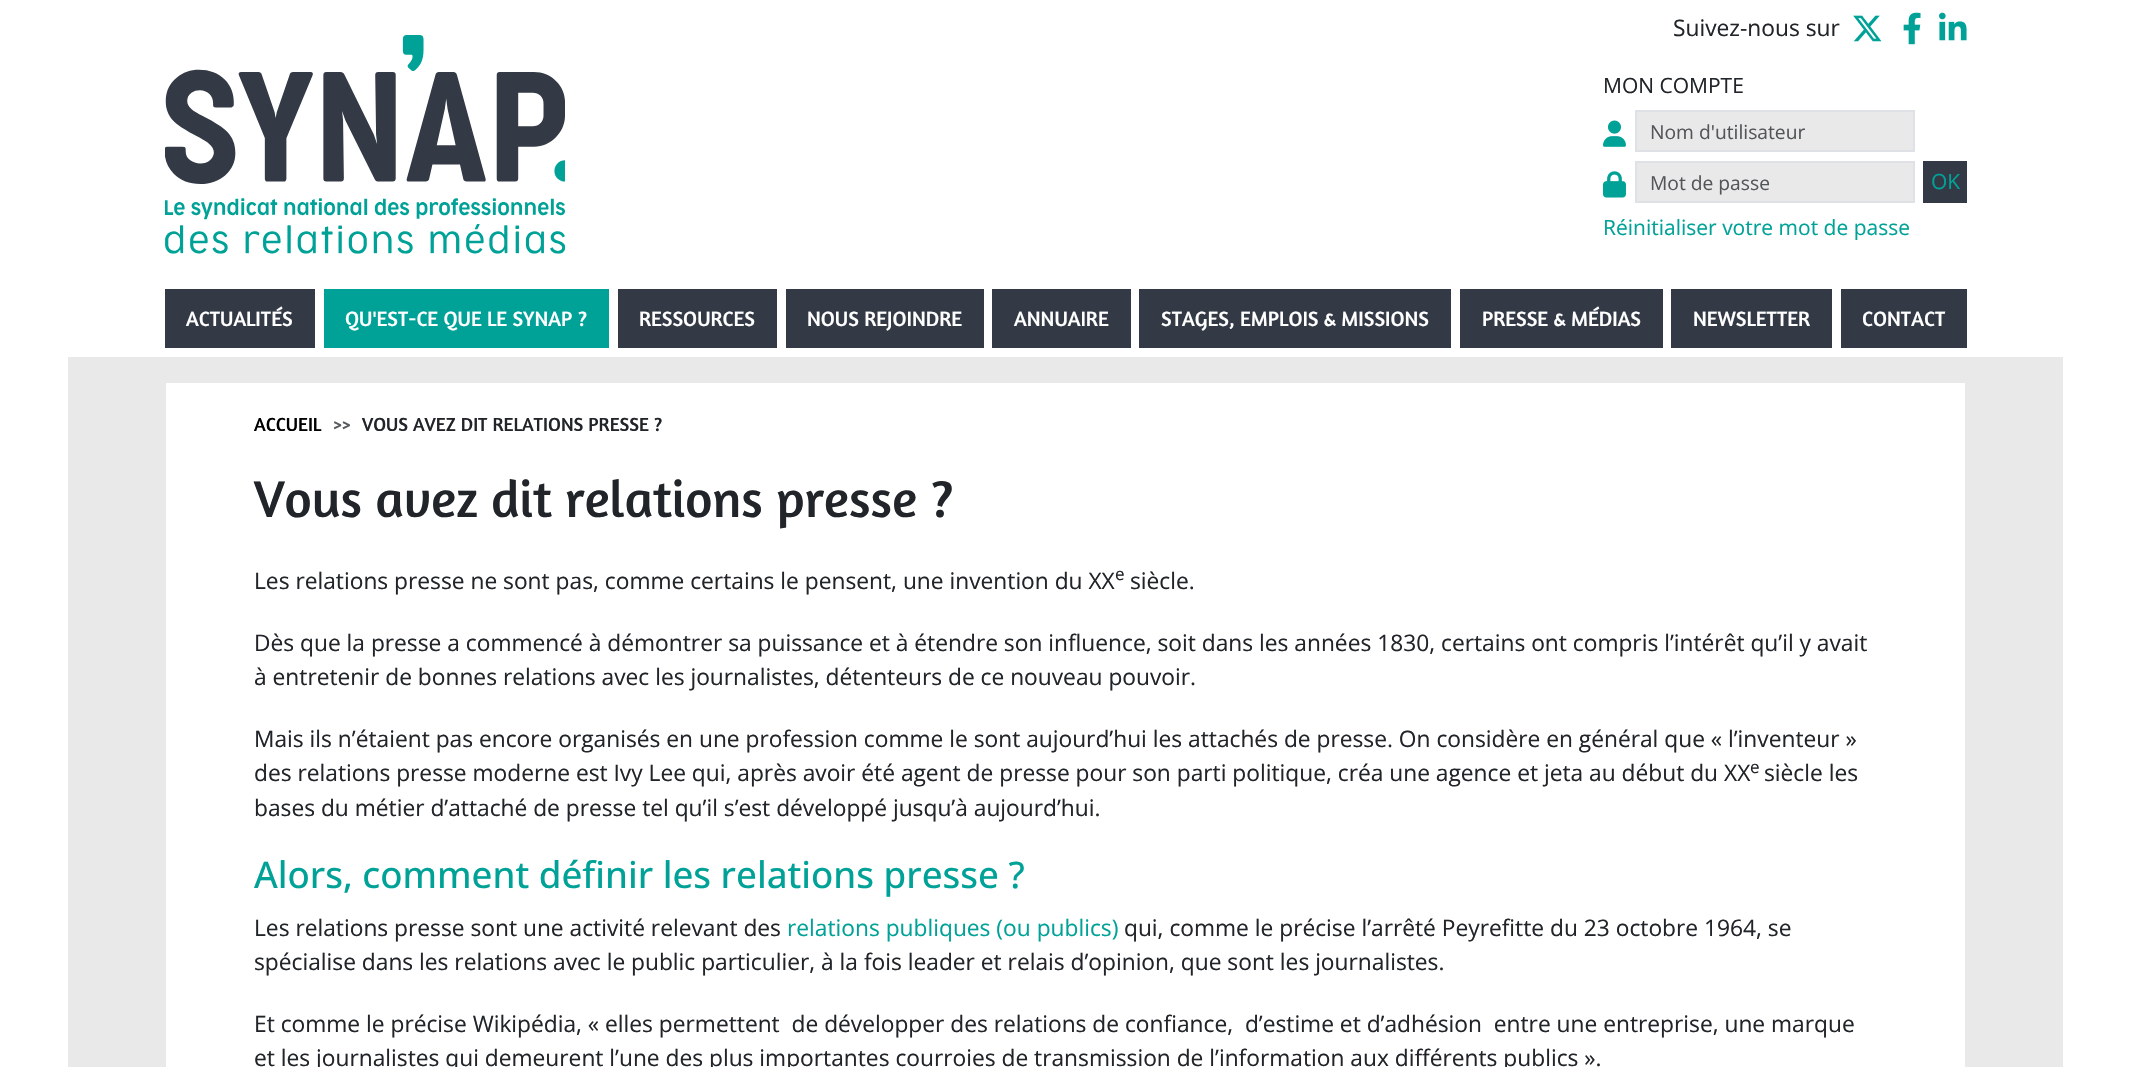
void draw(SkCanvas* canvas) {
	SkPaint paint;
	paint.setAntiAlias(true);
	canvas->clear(0xffffffff);
	SkFont f1(fontMgr->matchFamilyStyle("Open Sans", SkFontStyle::Normal()), 22.75);
	f1.setSubpixel(true);
	paint.setColor(0xff212529);
	canvas->drawString("Suivez-nous sur", 1673, 36, f1, paint);
	canvas->drawImageRect(SkImages::DeferredFromEncodedData(SkData::MakeFromFileName("img1.png")), SkRect::MakeXYWH(1853, 15, 29, 27), SkSamplingOptions());
	canvas->drawImageRect(SkImages::DeferredFromEncodedData(SkData::MakeFromFileName("img2.png")), SkRect::MakeXYWH(1903, 12, 18, 33), SkSamplingOptions());
	canvas->drawImageRect(SkImages::DeferredFromEncodedData(SkData::MakeFromFileName("img3.png")), SkRect::MakeXYWH(1939, 12, 28, 29), SkSamplingOptions());
	canvas->drawImageRect(SkImages::DeferredFromEncodedData(SkData::MakeFromFileName("img4.png")), SkRect::MakeXYWH(165, 35, 400, 219), SkSamplingOptions());
	SkFont f2(fontMgr->matchFamilyStyle("Open Sans", SkFontStyle::Normal()), 21);
	f2.setSubpixel(true);
	canvas->drawString("MON COMPTE", 1603, 93, f2, paint);
	canvas->drawImageRect(SkImages::DeferredFromEncodedData(SkData::MakeFromFileName("img5.png")), SkRect::MakeXYWH(1603, 120, 23, 27), SkSamplingOptions());
	paint.setColor(0xffe9e9ea);
	canvas->drawRect(SkRect::MakeXYWH(1636, 111, 278, 40), paint);
	paint.setStroke(true);
	paint.setStrokeWidth(2);
	paint.setColor(0xffdee2e6);
	canvas->drawRect(SkRect::MakeXYWH(1636, 111, 278, 40), paint);
	SkFont f3(fontMgr->matchFamilyStyle("Open Sans", SkFontStyle::Normal()), 19.25);
	f3.setSubpixel(true);
	paint.setStroke(false);
	paint.setColor(0xff535659);
	canvas->drawString("Nom d'utilisateur", 1650, 139, f3, paint);
	canvas->drawImageRect(SkImages::DeferredFromEncodedData(SkData::MakeFromFileName("img6.png")), SkRect::MakeXYWH(1603, 171, 23, 27), SkSamplingOptions());
	paint.setColor(0xffe9e9ea);
	canvas->drawRect(SkRect::MakeXYWH(1636, 162, 278, 40), paint);
	paint.setStroke(true);
	paint.setColor(0xffdee2e6);
	canvas->drawRect(SkRect::MakeXYWH(1636, 162, 278, 40), paint);
	paint.setStroke(false);
	paint.setColor(0xff535659);
	canvas->drawString("Mot de passe", 1650, 190, f3, paint);
	paint.setColor(0xff333a46);
	canvas->drawRect(SkRect::MakeXYWH(1923, 161, 44, 42), paint);
	paint.setColor(0xff00a298);
	canvas->drawString("OK", 1931, 189, f2, paint);
	canvas->drawString("Réinitialiser votre mot de passe", 1603, 235, f2, paint);
	paint.setColor(0xff333a46);
	canvas->drawRect(SkRect::MakeXYWH(165, 289, 150, 59), paint);
	SkFont f4(fontMgr->matchFamilyStyle("Amaranth", SkFontStyle::Normal()), 21);
	f4.setSubpixel(true);
	paint.setColor(0xffffffff);
	canvas->drawString("ACTUALITÉS", 186, 326, f4, paint);
	paint.setColor(0xff00a298);
	canvas->drawRect(SkRect::MakeXYWH(324, 289, 285, 59), paint);
	paint.setColor(0xffffffff);
	canvas->drawString("QU'EST-CE QUE LE SYNAP ?", 345, 326, f4, paint);
	paint.setColor(0xff333a46);
	canvas->drawRect(SkRect::MakeXYWH(618, 289, 159, 59), paint);
	paint.setColor(0xffffffff);
	canvas->drawString("RESSOURCES", 639, 326, f4, paint);
	paint.setColor(0xff333a46);
	canvas->drawRect(SkRect::MakeXYWH(786, 289, 198, 59), paint);
	paint.setColor(0xffffffff);
	canvas->drawString("NOUS REJOINDRE", 807, 326, f4, paint);
	paint.setColor(0xff333a46);
	canvas->drawRect(SkRect::MakeXYWH(992, 289, 139, 59), paint);
	paint.setColor(0xffffffff);
	canvas->drawString("ANNUAIRE", 1014, 326, f4, paint);
	paint.setColor(0xff333a46);
	canvas->drawRect(SkRect::MakeXYWH(1139, 289, 312, 59), paint);
	paint.setColor(0xffffffff);
	canvas->drawString("STAGES, EMPLOIS & MISSIONS", 1161, 326, f4, paint);
	paint.setColor(0xff333a46);
	canvas->drawRect(SkRect::MakeXYWH(1460, 289, 203, 59), paint);
	paint.setColor(0xffffffff);
	canvas->drawString("PRESSE & MÉDIAS", 1482, 326, f4, paint);
	paint.setColor(0xff333a46);
	canvas->drawRect(SkRect::MakeXYWH(1671, 289, 161, 59), paint);
	paint.setColor(0xffffffff);
	canvas->drawString("NEWSLETTER", 1693, 326, f4, paint);
	paint.setColor(0xff333a46);
	canvas->drawRect(SkRect::MakeXYWH(1841, 289, 126, 59), paint);
	paint.setColor(0xffffffff);
	canvas->drawString("CONTACT", 1862, 326, f4, paint);
	paint.setColor(0xffe9e9ea);
	canvas->drawRect(SkRect::MakeXYWH(68, 357, 1995, 710), paint);
	paint.setColor(0xffffffff);
	canvas->drawRect(SkRect::MakeXYWH(166, 383, 1799, 684), paint);
	SkFont f5(fontMgr->matchFamilyStyle("Amaranth", SkFontStyle::Normal()), 19.25);
	f5.setSubpixel(true);
	paint.setColor(0xff000000);
	canvas->drawString("ACCUEIL", 254, 431, f5, paint);
	paint.setColor(0xff595c5f);
	canvas->drawString(">>", 333, 431, f5, paint);
	paint.setColor(0xff212529);
	canvas->drawString("VOUS AVEZ DIT RELATIONS PRESSE ?", 362, 431, f5, paint);
	SkFont f6(fontMgr->matchFamilyStyle("Amaranth", SkFontStyle::Normal()), 52.5);
	f6.setSubpixel(true);
	canvas->drawString("Vous avez dit relations presse ?", 254, 517, f6, paint);
	canvas->drawString("Les relations presse ne sont pas, comme certains le pensent, une invention du XX", 254, 589, f1, paint);
	SkFont f7(fontMgr->matchFamilyStyle("Open Sans", SkFontStyle::Normal()), 17);
	f7.setSubpixel(true);
	canvas->drawString("e", 1115, 580, f7, paint);
	canvas->drawString("siècle.", 1130, 589, f1, paint);
	canvas->drawString("Dès que la presse a commencé à démontrer sa puissance et à étendre son influence, soit dans les années 1830, certains ont compris l’intérêt qu’il y avait", 254, 651, f1, paint);
	canvas->drawString("à entretenir de bonnes relations avec les journalistes, détenteurs de ce nouveau pouvoir.", 254, 685, f1, paint);
	canvas->drawString("Mais ils n’étaient pas encore organisés en une profession comme le sont aujourd’hui les attachés de presse. On considère en général que « l’inventeur »", 254, 747, f1, paint);
	canvas->drawString("des relations presse moderne est Ivy Lee qui, après avoir été agent de presse pour son parti politique, créa une agence et jeta au début du XX", 254, 781, f1, paint);
	canvas->drawString("e", 1750, 773, f7, paint);
	canvas->drawString("siècle les", 1764, 781, f1, paint);
	canvas->drawString("bases du métier d’attaché de presse tel qu’il s’est développé jusqu’à aujourd’hui.", 254, 816, f1, paint);
	SkFont f8(fontMgr->matchFamilyStyle("Open Sans", SkFontStyle(500, SkFontStyle::kNormal_Width, SkFontStyle::kUpright_Slant)), 36.75);
	f8.setSubpixel(true);
	paint.setColor(0xff00a298);
	canvas->drawString("Alors, comment définir les relations presse ?", 254, 888, f8, paint);
	paint.setColor(0xff212529);
	canvas->drawString("Les relations presse sont une activité relevant des", 254, 936, f1, paint);
	paint.setColor(0xff00a298);
	canvas->drawString("relations publiques (ou publics)", 787, 936, f1, paint);
	paint.setColor(0xff212529);
	canvas->drawString("qui, comme le précise l’arrêté Peyrefitte du 23 octobre 1964, se", 1124, 936, f1, paint);
	canvas->drawString("spécialise dans les relations avec le public particulier, à la fois leader et relais d’opinion, que sont les journalistes.", 254, 970, f1, paint);
	canvas->drawString("Et comme le précise Wikipédia, « elles permettent  de développer des relations de confiance,  d’estime et d’adhésion  entre une entreprise, une marque", 254, 1032, f1, paint);
	canvas->drawString("et les journalistes qui demeurent l’une des plus importantes courroies de transmission de l’information aux différents publics ».", 254, 1066, f1, paint);
}
